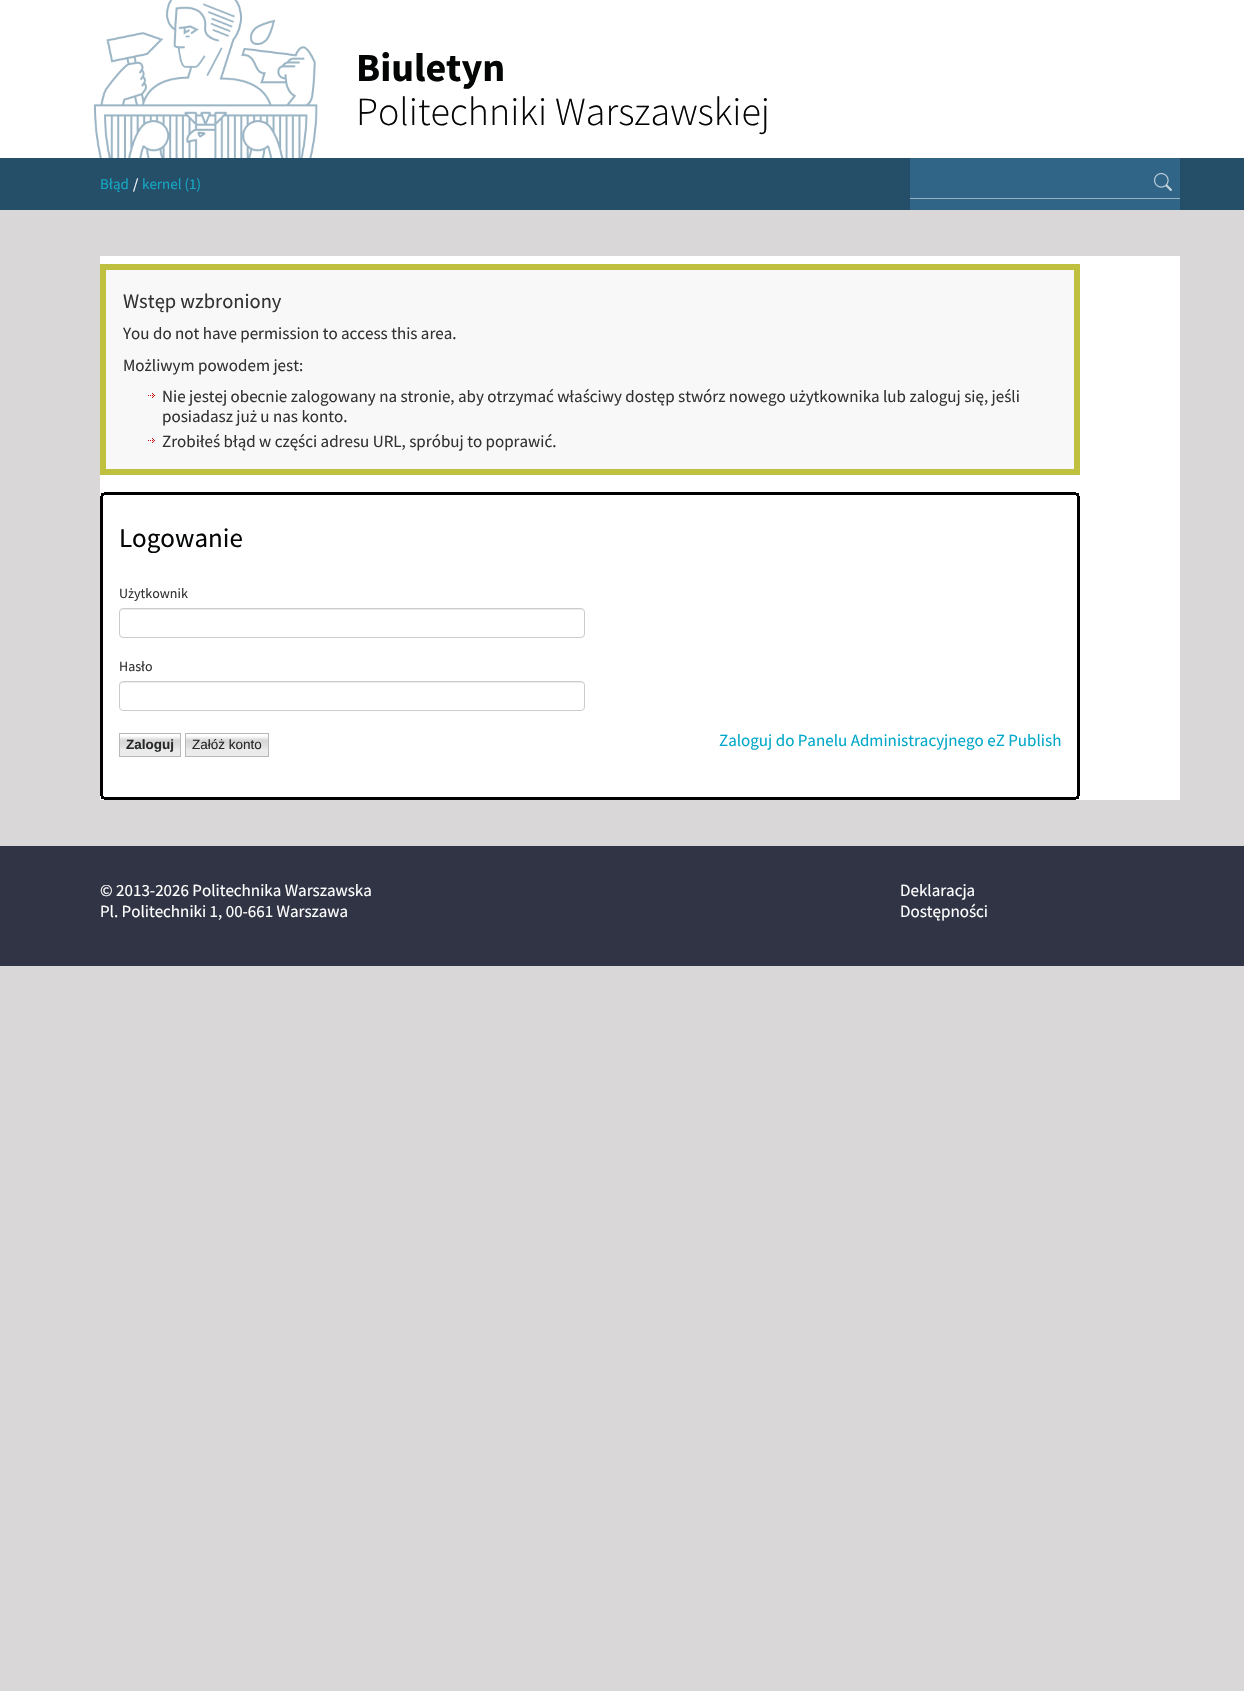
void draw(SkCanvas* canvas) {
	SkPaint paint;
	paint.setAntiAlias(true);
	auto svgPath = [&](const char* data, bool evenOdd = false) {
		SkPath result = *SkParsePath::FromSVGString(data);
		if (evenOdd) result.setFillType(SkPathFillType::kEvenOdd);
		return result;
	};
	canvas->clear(0xffdad7d9);
	paint.setColor(0xffffffff);
	canvas->drawRect(SkRect::MakeXYWH(0, 0, 1244, 158), paint);
	canvas->drawImageRect(SkImages::DeferredFromEncodedData(SkData::MakeFromFileName("img1.png")), SkRect::MakeXYWH(93, 0, 225, 158), SkSamplingOptions());
	SkFont f1(fontMgr->matchFamilyStyle("Source Sans Pro", SkFontStyle::Bold()), 40);
	f1.setSubpixel(true);
	paint.setColor(0xff040505);
	canvas->drawString("Biuletyn", 356, 81, f1, paint);
	SkFont f2(fontMgr->matchFamilyStyle("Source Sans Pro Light", SkFontStyle(300, SkFontStyle::kNormal_Width, SkFontStyle::kUpright_Slant)), 40);
	f2.setSubpixel(true);
	canvas->drawString("Politechniki Warszawskiej", 356, 125, f2, paint);
	paint.setColor(0xff254e69);
	canvas->drawRect(SkRect::MakeXYWH(0, 158, 1244, 52), paint);
	SkFont f3(fontMgr->matchFamilyStyle("Source Sans Pro", SkFontStyle::Normal()), 15);
	f3.setSubpixel(true);
	paint.setColor(0xff14a8c4);
	canvas->drawString("Błąd", 100, 189, f3, paint);
	paint.setColor(0xffffffff);
	canvas->drawString("/", 133, 189, f3, paint);
	paint.setColor(0xff14a8c4);
	canvas->drawString("kernel (1)", 142, 189, f3, paint);
	paint.setColor(0xff306588);
	canvas->drawRect(SkRect::MakeXYWH(910, 158, 270, 52), paint);
	paint.setColor(0xff98b2c4);
	canvas->drawRect(SkRect::MakeXYWH(910, 198, 270, 1), paint);
	canvas->drawImageRect(SkImages::DeferredFromEncodedData(SkData::MakeFromFileName("img2.png")), SkRect::MakeXYWH(1154, 173, 18, 18), SkSamplingOptions());
	paint.setColor(0xffffffff);
	canvas->drawRect(SkRect::MakeXYWH(100, 256, 1080, 544), paint);
	paint.setColor(0xfff8f8f8);
	canvas->drawRect(SkRect::MakeXYWH(103, 267, 974, 205), paint);
	paint.setStroke(true);
	paint.setStrokeWidth(6);
	paint.setColor(0xffc0c040);
	canvas->drawRect(SkRect::MakeXYWH(103, 267, 974, 205), paint);
	SkFont f4(fontMgr->matchFamilyStyle("Source Sans Pro", SkFontStyle::Normal()), 20.5);
	f4.setSubpixel(true);
	paint.setStroke(false);
	paint.setColor(0xff333333);
	canvas->drawString("Wstęp wzbroniony", 123, 308, f4, paint);
	SkFont f5(fontMgr->matchFamilyStyle("Source Sans Pro", SkFontStyle::Normal()), 17);
	f5.setSubpixel(true);
	canvas->drawString("You do not have permission to access this area.", 123, 339, f5, paint);
	canvas->drawString("Możliwym powodem jest:", 123, 371, f5, paint);
	canvas->drawImageRect(SkImages::DeferredFromEncodedData(SkData::MakeFromFileName("img3.png")), SkRect::MakeXYWH(148, 393, 7, 5), SkSamplingOptions());
	canvas->drawString("Nie jestej obecnie zalogowany na stronie, aby otrzymać właściwy dostęp stwórz nowego użytkownika lub zaloguj się, jeśli", 162, 402, f5, paint);
	canvas->drawString("posiadasz już u nas konto.", 162, 422, f5, paint);
	canvas->drawImageRect(SkImages::DeferredFromEncodedData(SkData::MakeFromFileName("img3.png")), SkRect::MakeXYWH(148, 438, 7, 5), SkSamplingOptions());
	canvas->drawString("Zrobiłeś błąd w części adresu URL, spróbuj to poprawić.", 162, 447, f5, paint);
	paint.setColor(0xff000000);
	canvas->drawRect(SkRect::MakeXYWH(101, 493, 3, 3), paint);
	canvas->drawRect(SkRect::MakeXYWH(1076, 493, 3, 3), paint);
	canvas->drawRect(SkRect::MakeXYWH(104, 492, 972, 3), paint);
	canvas->drawRect(SkRect::MakeXYWH(100, 496, 3, 300), paint);
	canvas->drawRect(SkRect::MakeXYWH(1077, 496, 3, 300), paint);
	SkFont f6(fontMgr->matchFamilyStyle("Source Sans Pro", SkFontStyle::Normal()), 27);
	f6.setSubpixel(true);
	paint.setColor(0xff040505);
	canvas->drawString("Logowanie", 119, 547, f6, paint);
	SkFont f7(fontMgr->matchFamilyStyle("Source Sans Pro", SkFontStyle::Normal()), 14);
	f7.setSubpixel(true);
	paint.setColor(0xff333333);
	canvas->drawString("Użytkownik", 119, 598, f7, paint);
	paint.setColor(0xffececec);
	canvas->drawPath(svgPath("M123 610H581C583 610 584 611 584 613C584 611 583 609 581 609H122L120 611V613C120 611 121 610 123 610Z"), paint);
	paint.setStroke(true);
	paint.setStrokeWidth(1);
	paint.setColor(0xffcccccc);
	canvas->drawRoundRect(SkRect::MakeXYWH(119.5, 608.5, 465, 29), 3.5, 3.5, paint);
	paint.setStroke(false);
	paint.setColor(0xff333333);
	canvas->drawString("Hasło", 119, 671, f7, paint);
	paint.setColor(0xffececec);
	canvas->drawPath(svgPath("M123 683H581C583 683 584 684 584 686C584 684 583 682 581 682H122L120 684V686C120 684 121 683 123 683Z"), paint);
	paint.setStroke(true);
	paint.setColor(0xffcccccc);
	canvas->drawRoundRect(SkRect::MakeXYWH(119.5, 681.5, 465, 29), 3.5, 3.5, paint);
	paint.setStroke(false);
	paint.setColor(0xffebebeb);
	canvas->drawRect(SkRect::MakeXYWH(120, 749, 60, 7), paint);
	canvas->drawImageRect(SkImages::DeferredFromEncodedData(SkData::MakeFromFileName("img4.png")), SkRect::MakeXYWH(120, 734, 60, 15), SkSamplingOptions());
	paint.setStroke(true);
	paint.setColor(0xffb9b7b7);
	canvas->drawRect(SkRect::MakeXYWH(119.5, 733.5, 61, 23), paint);
	SkFont f8(fontMgr->matchFamilyStyle("Liberation Sans", SkFontStyle::Bold()), 13.5);
	f8.setSubpixel(true);
	paint.setStroke(false);
	paint.setColor(0xff282929);
	canvas->drawString("Zaloguj", 126, 749, f8, paint);
	paint.setColor(0xffebebeb);
	canvas->drawRect(SkRect::MakeXYWH(186, 749, 82, 7), paint);
	canvas->drawImageRect(SkImages::DeferredFromEncodedData(SkData::MakeFromFileName("img5.png")), SkRect::MakeXYWH(186, 734, 82, 15), SkSamplingOptions());
	paint.setStroke(true);
	paint.setColor(0xffb9b7b7);
	canvas->drawRect(SkRect::MakeXYWH(185.5, 733.5, 83, 23), paint);
	SkFont f9(fontMgr->matchFamilyStyle("Liberation Sans", SkFontStyle::Normal()), 13.5);
	f9.setSubpixel(true);
	paint.setStroke(false);
	paint.setColor(0xff282929);
	canvas->drawString("Załóż konto", 192, 749, f9, paint);
	paint.setColor(0xff00a8c9);
	canvas->drawString("Zaloguj do Panelu Administracyjnego eZ Publish", 719, 746, f5, paint);
	paint.setColor(0xff000000);
	canvas->drawRect(SkRect::MakeXYWH(101, 796, 3, 3), paint);
	canvas->drawRect(SkRect::MakeXYWH(1076, 796, 3, 3), paint);
	canvas->drawRect(SkRect::MakeXYWH(104, 797, 972, 3), paint);
	paint.setColor(0xff313445);
	canvas->drawRect(SkRect::MakeXYWH(0, 846, 1244, 120), paint);
	paint.setColor(0xffffffff);
	canvas->drawString("© 2013-2026 Politechnika Warszawska", 100, 896, f5, paint);
	canvas->drawString("Pl. Politechniki 1, 00-661 Warszawa", 100, 917, f5, paint);
	canvas->drawString("Deklaracja", 900, 896, f5, paint);
	canvas->drawString("Dostępności", 900, 917, f5, paint);
}
